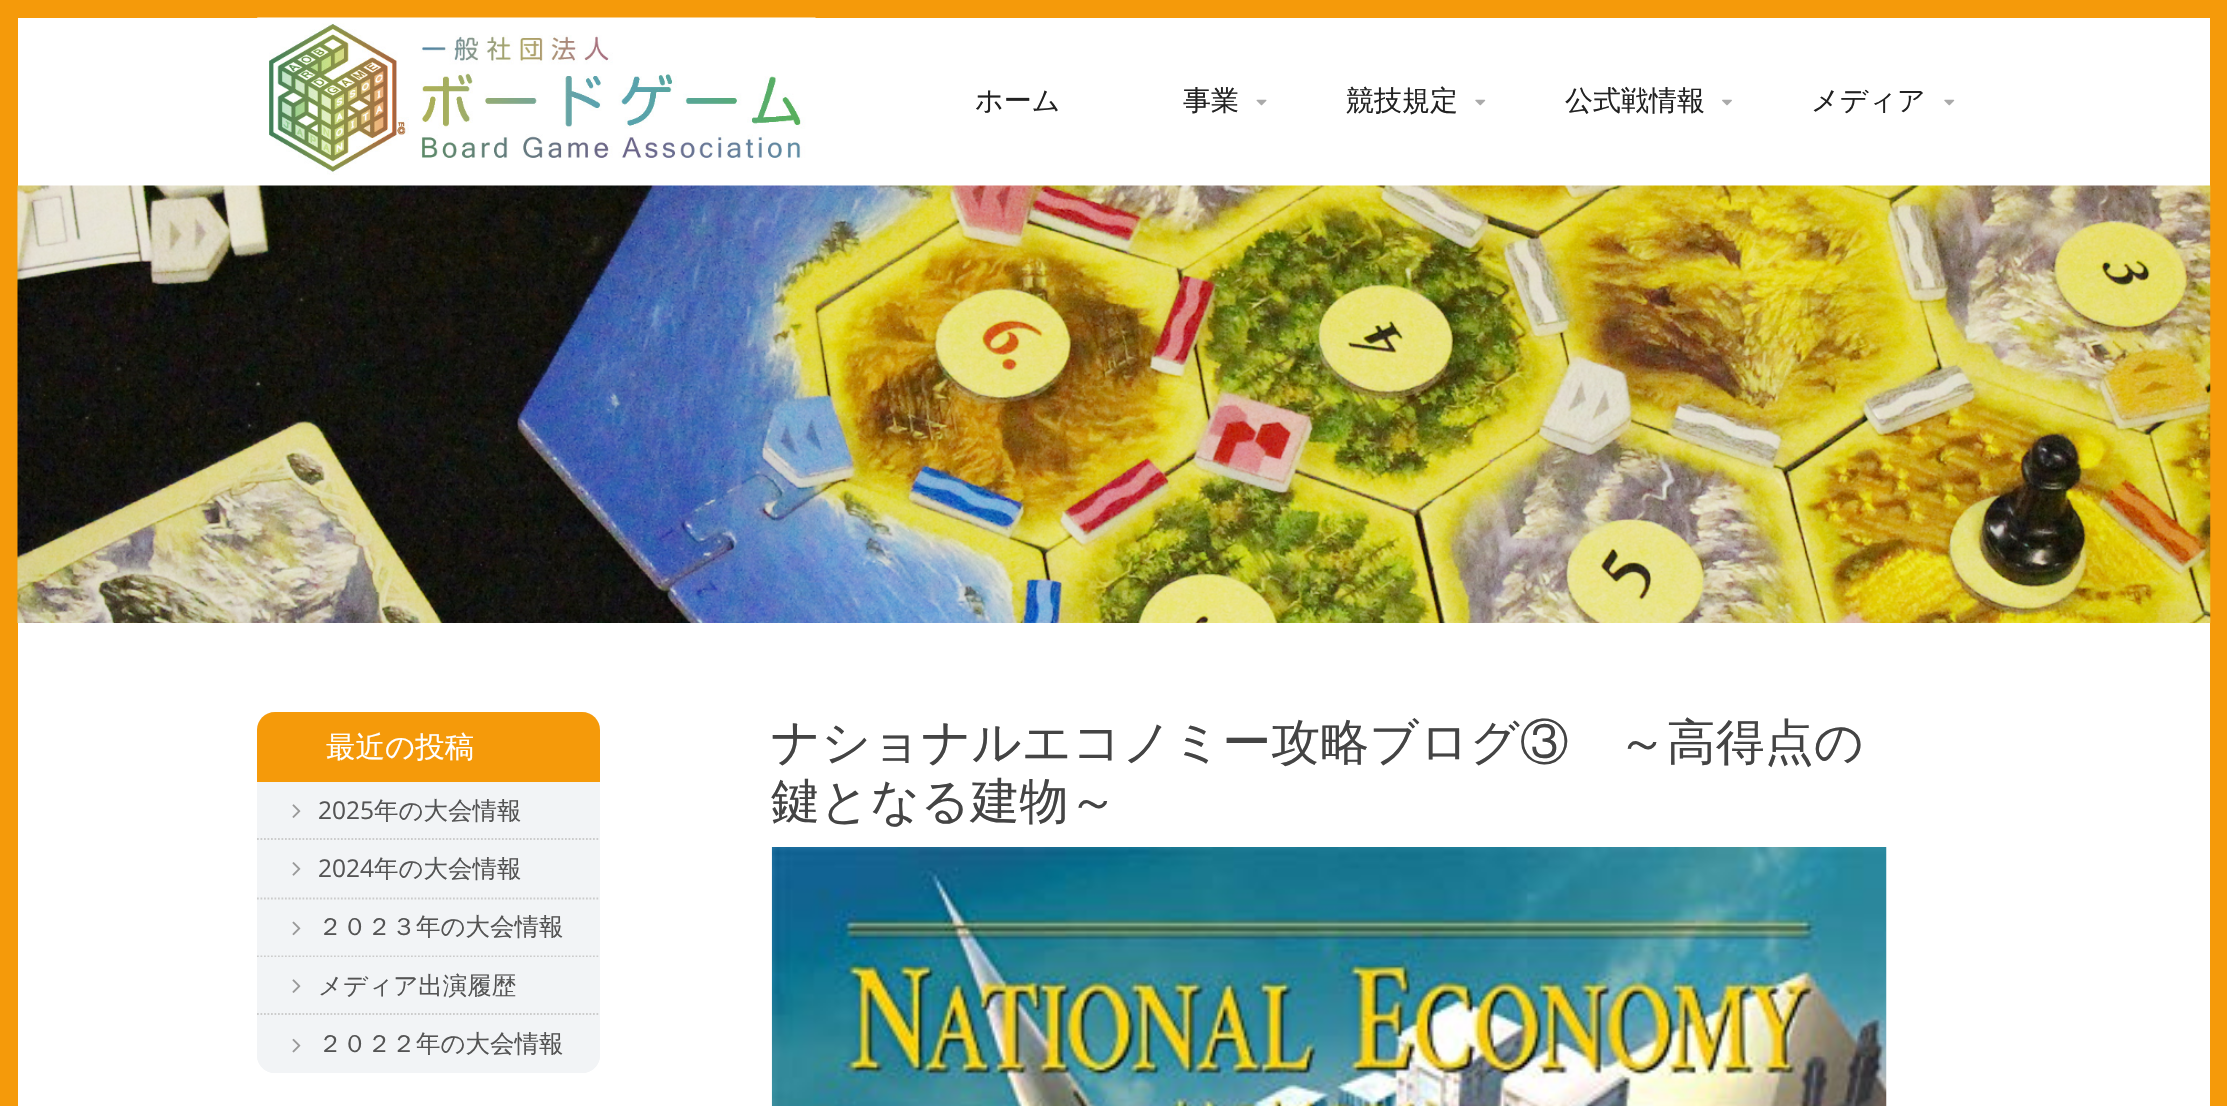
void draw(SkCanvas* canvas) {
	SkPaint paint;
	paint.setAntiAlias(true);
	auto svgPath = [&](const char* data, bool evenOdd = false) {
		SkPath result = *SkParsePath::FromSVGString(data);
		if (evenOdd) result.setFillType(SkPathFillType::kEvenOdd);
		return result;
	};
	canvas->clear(0xffffffff);
	paint.setStroke(true);
	paint.setStrokeWidth(18);
	paint.setColor(0xfff59a0a);
	canvas->drawRect(SkRect::MakeXYWH(9, 9, 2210, 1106), paint);
	canvas->drawImageRect(SkImages::DeferredFromEncodedData(SkData::MakeFromFileName("img1.png")), SkRect::MakeXYWH(257, 17, 559, 158), SkSamplingOptions());
	SkFont f1(fontMgr->matchFamilyStyle("WenQuanYi Zen Hei", SkFontStyle(500, SkFontStyle::kNormal_Width, SkFontStyle::kUpright_Slant)), 28);
	f1.setSubpixel(true);
	paint.setStroke(false);
	paint.setColor(0xff222222);
	canvas->drawString("ホーム", 975, 110, f1, paint);
	canvas->drawString("事業", 1183, 110, f1, paint);
	canvas->drawImageRect(SkImages::DeferredFromEncodedData(SkData::MakeFromFileName("img2.png")), SkRect::MakeXYWH(1256, 99, 11, 7), SkSamplingOptions());
	canvas->drawString("競技規定", 1346, 110, f1, paint);
	canvas->drawImageRect(SkImages::DeferredFromEncodedData(SkData::MakeFromFileName("img3.png")), SkRect::MakeXYWH(1475, 99, 11, 7), SkSamplingOptions());
	canvas->drawString("公式戦情報", 1565, 110, f1, paint);
	canvas->drawImageRect(SkImages::DeferredFromEncodedData(SkData::MakeFromFileName("img4.png")), SkRect::MakeXYWH(1722, 99, 10, 7), SkSamplingOptions());
	canvas->drawString("メディア", 1811, 110, f1, paint);
	canvas->drawImageRect(SkImages::DeferredFromEncodedData(SkData::MakeFromFileName("img3.png")), SkRect::MakeXYWH(1944, 99, 11, 7), SkSamplingOptions());
	canvas->drawImageRect(SkImages::DeferredFromEncodedData(SkData::MakeFromFileName("img5.png")), SkRect::MakeXYWH(17, 185, 2194, 438), SkSamplingOptions());
	paint.setColor(0xfff2f4f6);
	canvas->drawRoundRect(SkRect::MakeXYWH(257, 712, 343, 361), 18, 18, paint);
	paint.setColor(0xfff59a0a);
	canvas->drawPath(svgPath("M275 712H582C592 712 600 720 600 730V782H257V730C257 720 265 712 275 712Z"), paint);
	SkFont f2(fontMgr->matchFamilyStyle("WenQuanYi Zen Hei", SkFontStyle(500, SkFontStyle::kNormal_Width, SkFontStyle::kUpright_Slant)), 29.5);
	f2.setSubpixel(true);
	paint.setColor(0xffffffff);
	canvas->drawString("最近の投稿", 326, 757, f2, paint);
	canvas->drawImageRect(SkImages::DeferredFromEncodedData(SkData::MakeFromFileName("img6.png")), SkRect::MakeXYWH(292, 804, 9, 14), SkSamplingOptions());
	SkFont f3(fontMgr->matchFamilyStyle("Open Sans", SkFontStyle::Normal()), 24.5);
	f3.setSubpixel(true);
	paint.setColor(0xff545454);
	canvas->drawString("2025", 318, 819, f3, paint);
	SkFont f4(fontMgr->matchFamilyStyle("WenQuanYi Zen Hei", SkFontStyle(500, SkFontStyle::kNormal_Width, SkFontStyle::kUpright_Slant)), 24.5);
	f4.setSubpixel(true);
	canvas->drawString("年の大会情報", 374, 819, f4, paint);
	paint.setStroke(true);
	paint.setStrokeWidth(1.8);
	paint.setColor(0xffcccccc);
	paint.setPathEffect(SkDashPathEffect::Make({{1.75f, 1.75f}}, 0));
	canvas->drawPath(svgPath("M257 839H600"), paint);
	paint.setPathEffect(nullptr);
	canvas->drawImageRect(SkImages::DeferredFromEncodedData(SkData::MakeFromFileName("img7.png")), SkRect::MakeXYWH(292, 862, 9, 14), SkSamplingOptions());
	paint.setStroke(false);
	paint.setColor(0xff545454);
	canvas->drawString("2024", 318, 877, f3, paint);
	canvas->drawString("年の大会情報", 374, 877, f4, paint);
	paint.setStroke(true);
	paint.setColor(0xffcccccc);
	paint.setPathEffect(SkDashPathEffect::Make({{1.75f, 1.75f}}, 0));
	canvas->drawPath(svgPath("M257 898.5H600"), paint);
	paint.setPathEffect(nullptr);
	canvas->drawImageRect(SkImages::DeferredFromEncodedData(SkData::MakeFromFileName("img8.png")), SkRect::MakeXYWH(292, 921, 9, 15), SkSamplingOptions());
	paint.setStroke(false);
	paint.setColor(0xff545454);
	canvas->drawString("２０２３年の大会情報", 318, 935, f4, paint);
	paint.setStroke(true);
	paint.setColor(0xffcccccc);
	paint.setPathEffect(SkDashPathEffect::Make({{1.75f, 1.75f}}, 0));
	canvas->drawPath(svgPath("M257 956.5H600"), paint);
	paint.setPathEffect(nullptr);
	paint.setStroke(false);
	paint.setColor(0xfff2f4f6);
	canvas->drawRect(SkRect::MakeXYWH(257, 957, 342, 1), paint);
	canvas->drawImageRect(SkImages::DeferredFromEncodedData(SkData::MakeFromFileName("img6.png")), SkRect::MakeXYWH(292, 979, 9, 14), SkSamplingOptions());
	paint.setColor(0xff545454);
	canvas->drawString("メディア出演履歴", 318, 994, f4, paint);
	paint.setStroke(true);
	paint.setColor(0xffcccccc);
	paint.setPathEffect(SkDashPathEffect::Make({{1.75f, 1.75f}}, 0));
	canvas->drawPath(svgPath("M257 1014H600"), paint);
	paint.setPathEffect(nullptr);
	paint.setStroke(false);
	paint.setColor(0xfff2f4f6);
	canvas->drawPath(svgPath("M257 1015H600V1055C600 1065 592 1073 582 1073H275C265 1073 257 1065 257 1055Z"), paint);
	canvas->drawImageRect(SkImages::DeferredFromEncodedData(SkData::MakeFromFileName("img9.png")), SkRect::MakeXYWH(292, 1038, 9, 15), SkSamplingOptions());
	paint.setColor(0xff545454);
	canvas->drawString("２０２２年の大会情報", 318, 1052, f4, paint);
	SkFont f5(fontMgr->matchFamilyStyle("WenQuanYi Zen Hei", SkFontStyle(500, SkFontStyle::kNormal_Width, SkFontStyle::kUpright_Slant)), 49);
	f5.setSubpixel(true);
	paint.setColor(0xff444444);
	canvas->drawString("ナショナルエコノミー攻略ブログ③　～高得点の", 771, 759, f5, paint);
	canvas->drawString("鍵となる建物～", 771, 818, f5, paint);
	canvas->drawImageRect(SkImages::DeferredFromEncodedData(SkData::MakeFromFileName("img10.png")), SkRect::MakeXYWH(771, 847, 1116, 259), SkSamplingOptions());
}
